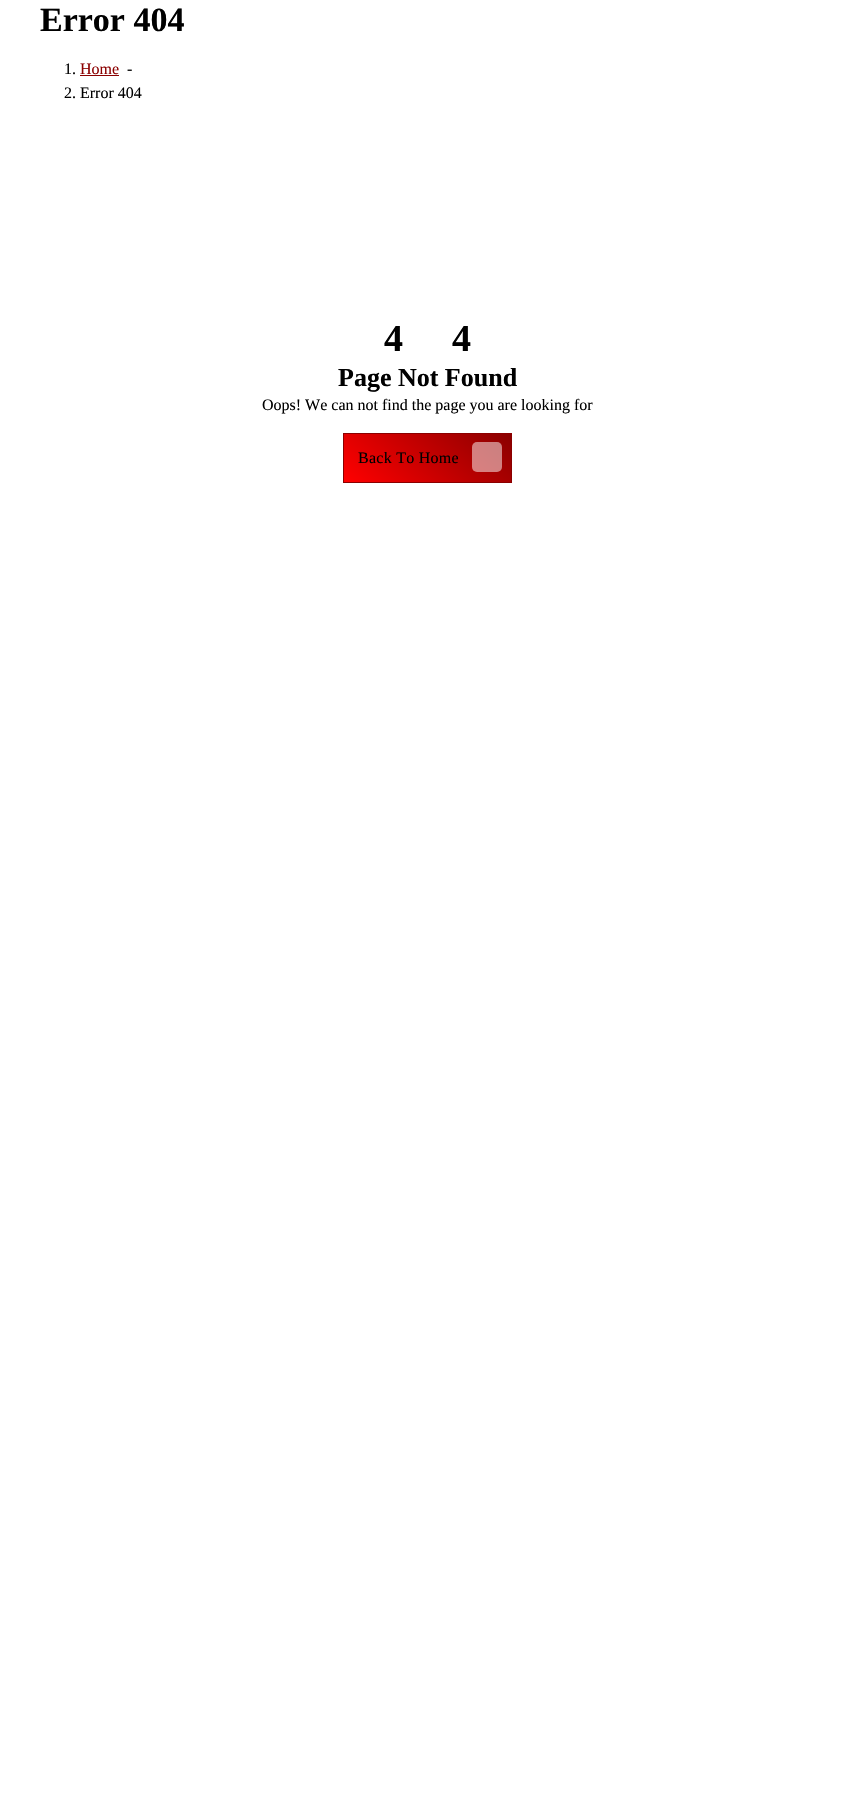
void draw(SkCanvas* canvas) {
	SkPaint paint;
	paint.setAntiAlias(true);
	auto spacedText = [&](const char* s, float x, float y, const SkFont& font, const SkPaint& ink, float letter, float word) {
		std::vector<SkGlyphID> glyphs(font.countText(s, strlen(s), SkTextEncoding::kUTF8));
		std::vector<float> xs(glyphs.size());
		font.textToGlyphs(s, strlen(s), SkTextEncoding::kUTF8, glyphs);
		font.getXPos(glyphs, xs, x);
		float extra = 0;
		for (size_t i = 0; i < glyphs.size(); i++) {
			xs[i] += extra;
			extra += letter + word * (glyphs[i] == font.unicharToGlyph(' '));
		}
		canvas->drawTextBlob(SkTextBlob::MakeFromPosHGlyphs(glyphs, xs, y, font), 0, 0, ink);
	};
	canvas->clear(0xffffffff);
	SkFont f1(fontMgr->matchFamilyStyle("Liberation Serif", SkFontStyle::Bold()), 34);
	f1.setSubpixel(true);
	paint.setColor(0xff000000);
	canvas->drawString("Error 404", 40, 31, f1, paint);
	SkFont f2(fontMgr->matchFamilyStyle("Liberation Serif", SkFontStyle::Normal()), 16);
	f2.setSubpixel(true);
	canvas->drawString("1.", 64, 74, f2, paint);
	paint.setColor(0xff8b0000);
	canvas->drawString("Home", 80, 74, f2, paint);
	canvas->drawRect(SkRect::MakeXYWH(80, 75, 39, 1), paint);
	paint.setColor(0xff000000);
	canvas->drawString("-", 127, 74, f2, paint);
	canvas->drawString("2. Error 404", 64, 98, f2, paint);
	SkFont f3(fontMgr->matchFamilyStyle("Liberation Serif", SkFontStyle::Bold()), 38);
	f3.setSubpixel(true);
	canvas->drawString("4", 384, 351, f3, paint);
	canvas->drawString("4", 452, 351, f3, paint);
	SkFont f4(fontMgr->matchFamilyStyle("Liberation Serif", SkFontStyle::Bold()), 26);
	f4.setSubpixel(true);
	canvas->drawString("Page Not Found", 338, 386, f4, paint);
	canvas->drawString("Oops! We can not find the page you are looking for", 262, 410, f2, paint);
	{
		const SkColor colors[] = {0xff8b0000, 0xffff0000};
		const float stops[] = {0, 1};
		const SkPoint ends[] = {{478, 404}, {377, 512}};
		paint.setShader(SkGradientShader::MakeLinear(ends, colors, stops, 2, SkTileMode::kClamp));
		paint.setAlpha(255);
	}
	canvas->drawRect(SkRect::MakeXYWH(344, 434, 167, 48), paint);
	paint.setStroke(true);
	paint.setStrokeWidth(1);
	paint.setShader(nullptr);
	paint.setColor(0xff8b0000);
	canvas->drawRect(SkRect::MakeXYWH(343.5, 433.5, 168, 49), paint);
	paint.setStroke(false);
	paint.setColor(0xff000000);
	spacedText("Back To Home", 358, 463, f2, paint, 0.25, 0);
	paint.setColor(0x80ffffff);
	canvas->drawRoundRect(SkRect::MakeXYWH(472, 442, 30, 30), 5, 5, paint);
}
